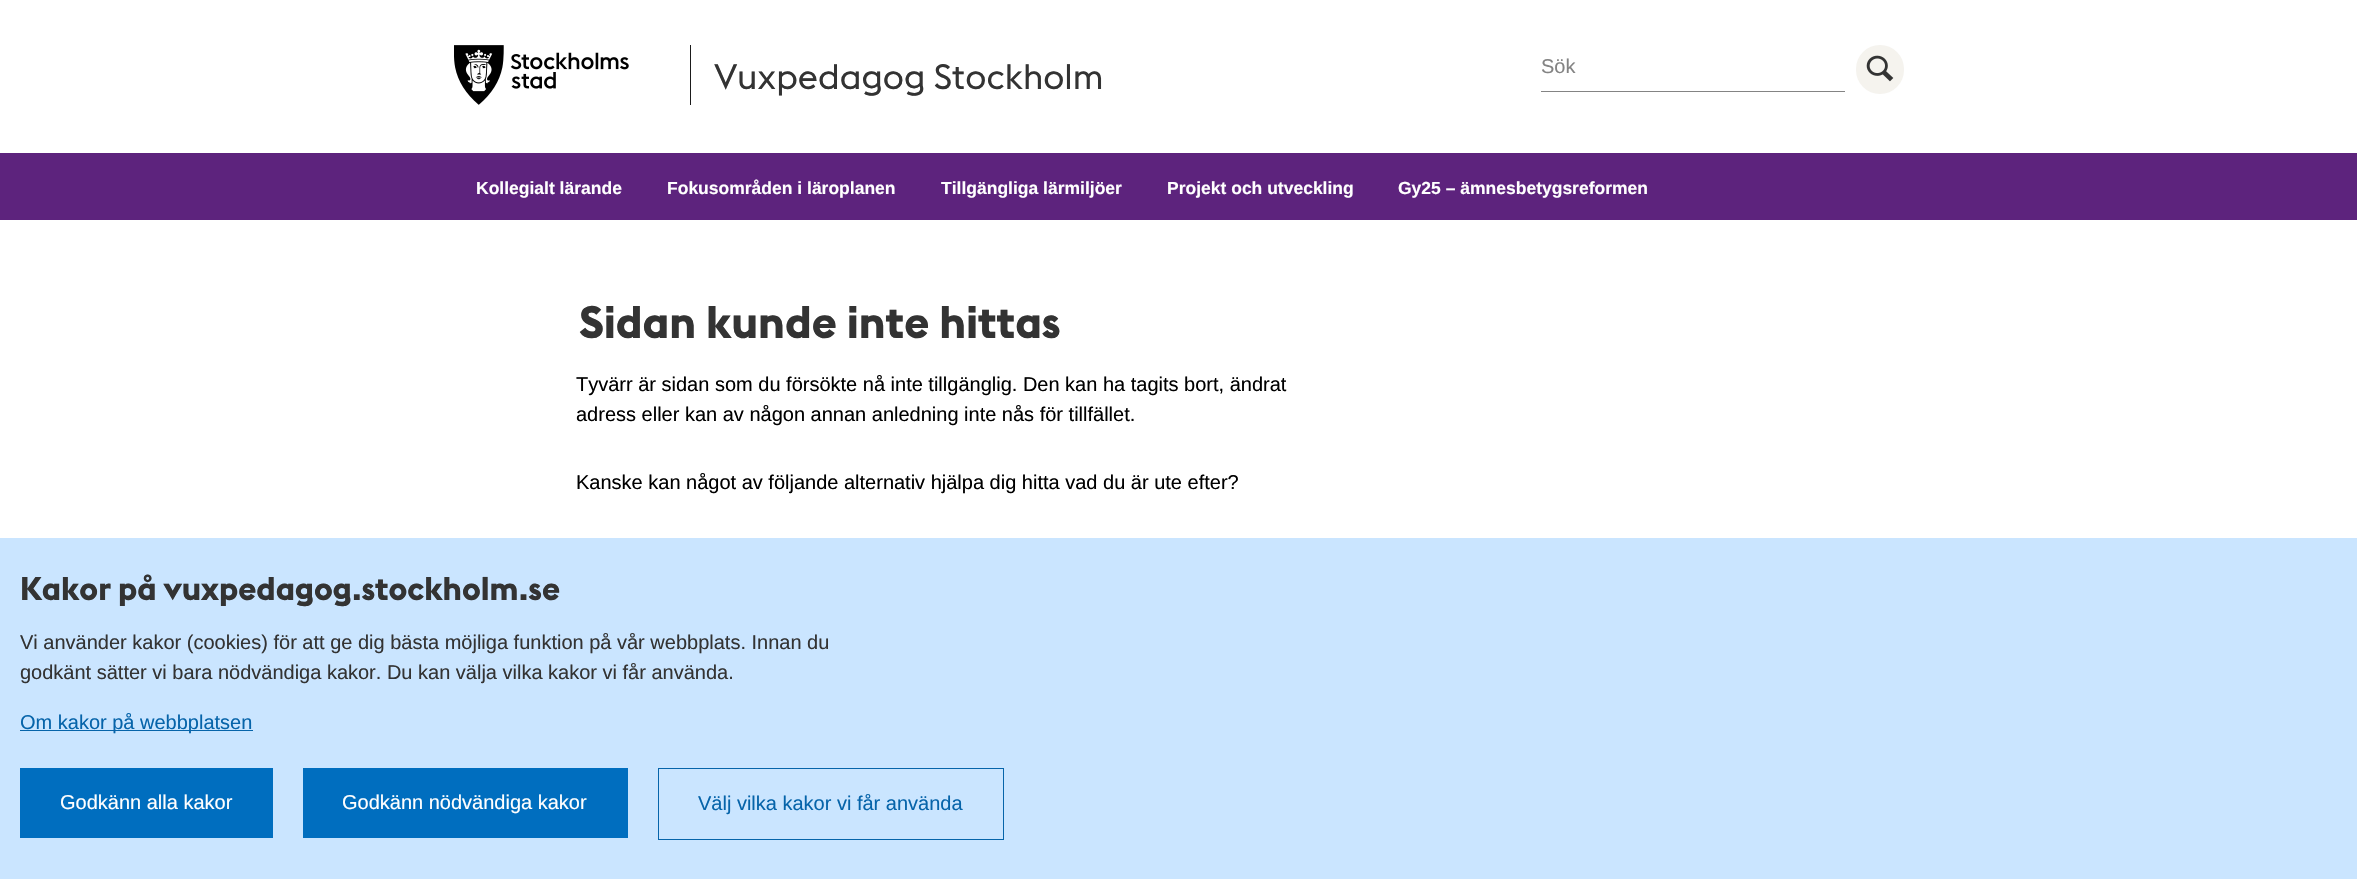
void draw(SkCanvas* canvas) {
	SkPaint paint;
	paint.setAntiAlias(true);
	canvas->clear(0xffffffff);
	canvas->drawImageRect(SkImages::DeferredFromEncodedData(SkData::MakeFromFileName("img1.png")), SkRect::MakeXYWH(454, 45, 175, 60), SkSamplingOptions());
	paint.setColor(0xff1b1b1b);
	canvas->drawRect(SkRect::MakeXYWH(690, 45, 1, 60), paint);
	SkFont f1(fontMgr->matchFamilyStyle("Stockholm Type", SkFontStyle::Normal()), 35);
	f1.setSubpixel(true);
	paint.setColor(0xff333333);
	canvas->drawString("Vuxpedagog Stockholm", 714, 89, f1, paint);
	SkFont f2(fontMgr->matchFamilyStyle("Liberation Sans", SkFontStyle::Normal()), 20);
	f2.setSubpixel(true);
	paint.setColor(0xff848484);
	canvas->drawString("Sök", 1541, 73, f2, paint);
	canvas->drawRect(SkRect::MakeXYWH(1541, 91, 304, 1), paint);
	paint.setColor(0xfff5f3ee);
	canvas->drawRoundRect(SkRect::MakeXYWH(1856, 45, 48, 49), 24, 24, paint);
	canvas->drawImageRect(SkImages::DeferredFromEncodedData(SkData::MakeFromFileName("img2.png")), SkRect::MakeXYWH(1866, 55, 28, 27), SkSamplingOptions());
	paint.setColor(0xff5d237d);
	canvas->drawRect(SkRect::MakeXYWH(0, 153, 2357, 67), paint);
	SkFont f3(fontMgr->matchFamilyStyle("Liberation Sans", SkFontStyle::Bold()), 17.5);
	f3.setSubpixel(true);
	paint.setColor(0xffffffff);
	canvas->drawString("Kollegialt lärande", 476, 194, f3, paint);
	canvas->drawString("Fokusområden i läroplanen", 667, 194, f3, paint);
	canvas->drawString("Tillgängliga lärmiljöer", 941, 194, f3, paint);
	canvas->drawString("Projekt och utveckling", 1167, 194, f3, paint);
	canvas->drawString("Gy25 – ämnesbetygsreformen", 1398, 194, f3, paint);
	SkFont f4(fontMgr->matchFamilyStyle("Stockholm Type", SkFontStyle::Bold()), 45);
	f4.setSubpixel(true);
	paint.setColor(0xff333333);
	canvas->drawString("Sidan kunde inte hittas", 579, 338, f4, paint);
	paint.setColor(0xff000000);
	canvas->drawString("Tyvärr är sidan som du försökte nå inte tillgänglig. Den kan ha tagits bort, ändrat", 576, 391, f2, paint);
	canvas->drawString("adress eller kan av någon annan anledning inte nås för tillfället.", 576, 421, f2, paint);
	canvas->drawString("Kanske kan något av följande alternativ hjälpa dig hitta vad du är ute efter?", 576, 489, f2, paint);
	paint.setColor(0xffcae5ff);
	canvas->drawRect(SkRect::MakeXYWH(0, 538, 2357, 341), paint);
	SkFont f5(fontMgr->matchFamilyStyle("Stockholm Type", SkFontStyle::Bold()), 32.5);
	f5.setSubpixel(true);
	paint.setColor(0xff333333);
	canvas->drawString("Kakor på vuxpedagog.stockholm.se", 20, 600, f5, paint);
	canvas->drawString("Vi använder kakor (cookies) för att ge dig bästa möjliga funktion på vår webbplats. Innan du", 20, 649, f2, paint);
	canvas->drawString("godkänt sätter vi bara nödvändiga kakor. Du kan välja vilka kakor vi får använda.", 20, 679, f2, paint);
	paint.setColor(0xff0664aa);
	canvas->drawRect(SkRect::MakeXYWH(20, 730, 233, 1), paint);
	canvas->drawString("Om kakor på webbplatsen", 20, 729, f2, paint);
	paint.setColor(0xff006ebf);
	canvas->drawRect(SkRect::MakeXYWH(20, 768, 253, 70), paint);
	paint.setColor(0xffffffff);
	canvas->drawString("Godkänn alla kakor", 60, 809, f2, paint);
	paint.setColor(0xff006ebf);
	canvas->drawRect(SkRect::MakeXYWH(303, 768, 325, 70), paint);
	paint.setColor(0xffffffff);
	canvas->drawString("Godkänn nödvändiga kakor", 342, 809, f2, paint);
	paint.setStroke(true);
	paint.setStrokeWidth(1);
	paint.setColor(0xff0664aa);
	canvas->drawRect(SkRect::MakeXYWH(658.5, 768.5, 345, 71), paint);
	paint.setStroke(false);
	canvas->drawString("Välj vilka kakor vi får använda", 698, 810, f2, paint);
}
